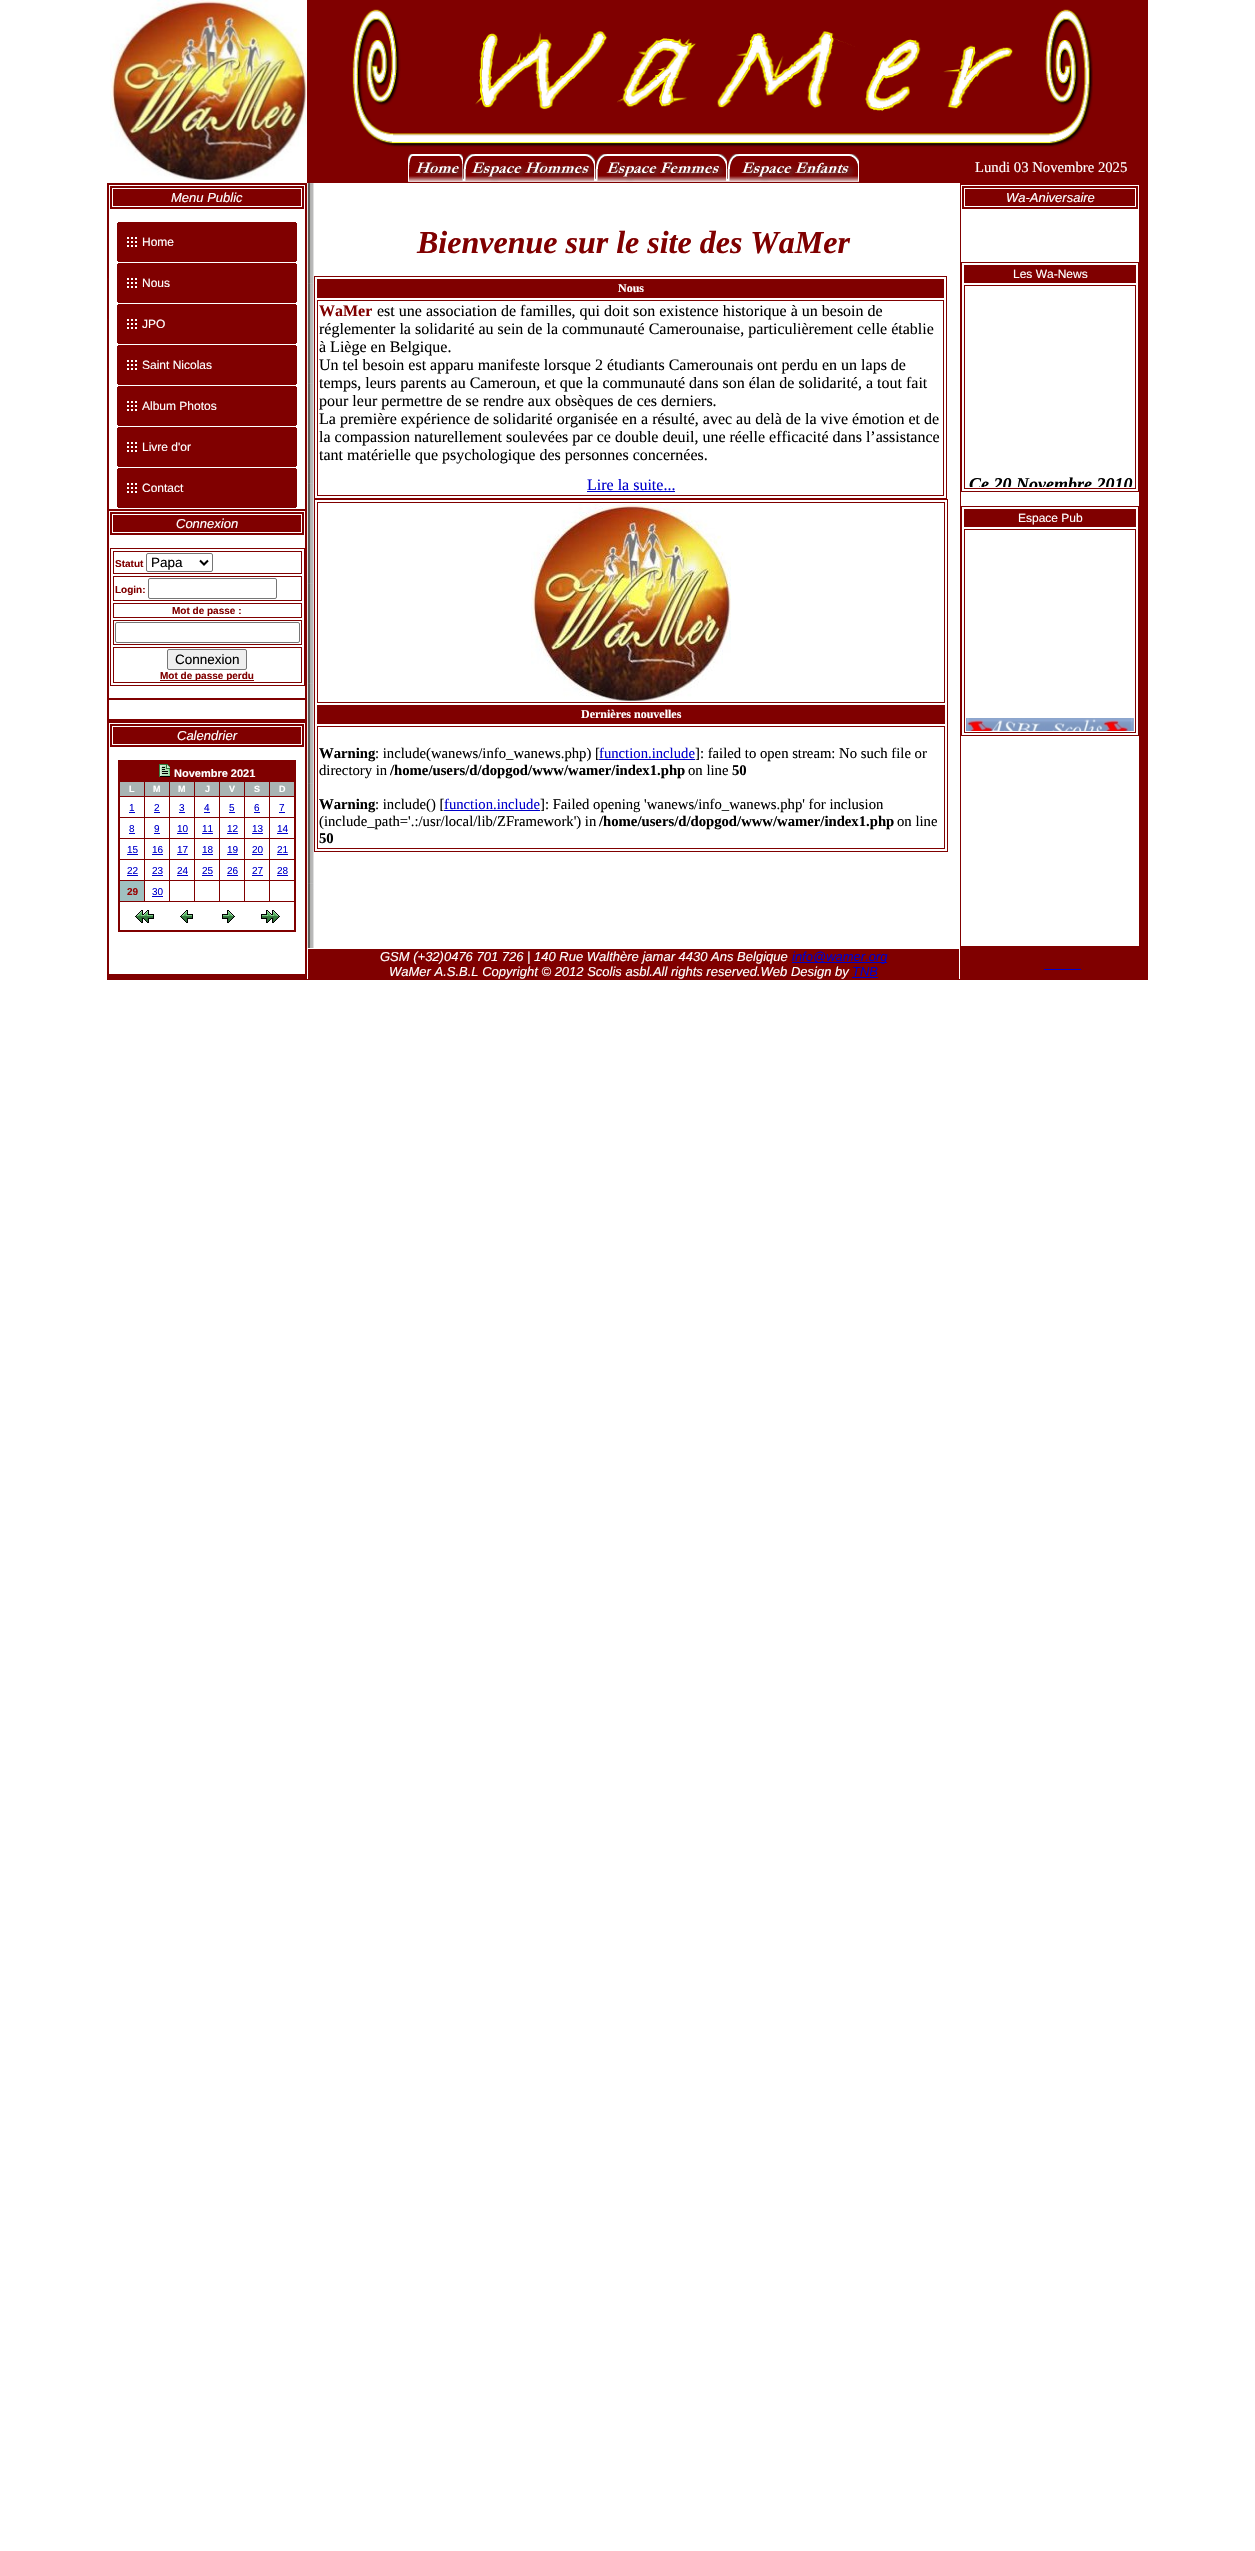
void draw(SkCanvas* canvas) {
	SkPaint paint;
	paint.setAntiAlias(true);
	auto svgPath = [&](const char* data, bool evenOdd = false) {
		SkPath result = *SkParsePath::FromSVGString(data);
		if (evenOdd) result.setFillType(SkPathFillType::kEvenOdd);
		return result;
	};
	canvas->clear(0xffffffff);
	paint.setColor(0xff800000);
	canvas->drawRect(SkRect::MakeXYWH(107, 0, 1041, 980), paint);
	paint.setColor(0xffffffff);
	canvas->drawRect(SkRect::MakeXYWH(107, 0, 200, 183), paint);
	canvas->drawImageRect(SkImages::DeferredFromEncodedData(SkData::MakeFromFileName("img1.png")), SkRect::MakeXYWH(110, 0, 197, 180), SkSamplingOptions());
	canvas->drawImageRect(SkImages::DeferredFromEncodedData(SkData::MakeFromFileName("img2.png")), SkRect::MakeXYWH(352, 9, 741, 138), SkSamplingOptions());
	canvas->drawImageRect(SkImages::DeferredFromEncodedData(SkData::MakeFromFileName("img3.png")), SkRect::MakeXYWH(408, 154, 55, 28), SkSamplingOptions());
	canvas->drawImageRect(SkImages::DeferredFromEncodedData(SkData::MakeFromFileName("img4.png")), SkRect::MakeXYWH(463, 154, 132, 28), SkSamplingOptions());
	canvas->drawImageRect(SkImages::DeferredFromEncodedData(SkData::MakeFromFileName("img5.png")), SkRect::MakeXYWH(595, 154, 132, 28), SkSamplingOptions());
	canvas->drawImageRect(SkImages::DeferredFromEncodedData(SkData::MakeFromFileName("img6.png")), SkRect::MakeXYWH(727, 154, 132, 28), SkSamplingOptions());
	SkFont f1(fontMgr->matchFamilyStyle("Liberation Serif", SkFontStyle::Normal()), 14.7);
	f1.setSubpixel(true);
	canvas->drawString("Lundi 03 Novembre 2025", 975, 172, f1, paint);
	canvas->drawRect(SkRect::MakeXYWH(109, 210, 196, 299), paint);
	paint.setStroke(true);
	paint.setStrokeWidth(1);
	canvas->drawRect(SkRect::MakeXYWH(109.5, 185.5, 195, 24), paint);
	canvas->drawRect(SkRect::MakeXYWH(112.5, 188.5, 189, 18), paint);
	SkFont f2(fontMgr->matchFamilyStyle("Liberation Sans", SkFontStyle::Italic()), 13);
	f2.setSubpixel(true);
	paint.setStroke(false);
	canvas->drawString("Menu Public", 171, 202, f2, paint);
	canvas->drawImageRect(SkImages::DeferredFromEncodedData(SkData::MakeFromFileName("img7.png")), SkRect::MakeXYWH(117, 222, 180, 40), SkSamplingOptions());
	SkFont f3(fontMgr->matchFamilyStyle("Liberation Sans", SkFontStyle::Normal()), 12);
	f3.setSubpixel(true);
	canvas->drawString("Home", 142, 246, f3, paint);
	canvas->drawImageRect(SkImages::DeferredFromEncodedData(SkData::MakeFromFileName("img7.png")), SkRect::MakeXYWH(117, 263, 180, 40), SkSamplingOptions());
	canvas->drawString("Nous", 142, 287, f3, paint);
	canvas->drawImageRect(SkImages::DeferredFromEncodedData(SkData::MakeFromFileName("img7.png")), SkRect::MakeXYWH(117, 304, 180, 40), SkSamplingOptions());
	canvas->drawString("JPO", 142, 328, f3, paint);
	canvas->drawImageRect(SkImages::DeferredFromEncodedData(SkData::MakeFromFileName("img7.png")), SkRect::MakeXYWH(117, 345, 180, 40), SkSamplingOptions());
	canvas->drawString("Saint Nicolas", 142, 369, f3, paint);
	canvas->drawImageRect(SkImages::DeferredFromEncodedData(SkData::MakeFromFileName("img7.png")), SkRect::MakeXYWH(117, 386, 180, 40), SkSamplingOptions());
	canvas->drawString("Album Photos", 142, 410, f3, paint);
	canvas->drawImageRect(SkImages::DeferredFromEncodedData(SkData::MakeFromFileName("img7.png")), SkRect::MakeXYWH(117, 427, 180, 40), SkSamplingOptions());
	canvas->drawString("Livre d'or", 142, 451, f3, paint);
	canvas->drawImageRect(SkImages::DeferredFromEncodedData(SkData::MakeFromFileName("img7.png")), SkRect::MakeXYWH(117, 468, 180, 40), SkSamplingOptions());
	canvas->drawString("Contact", 142, 492, f3, paint);
	canvas->drawRect(SkRect::MakeXYWH(961, 210, 178, 736), paint);
	paint.setStroke(true);
	canvas->drawRect(SkRect::MakeXYWH(961.5, 185.5, 177, 24), paint);
	canvas->drawRect(SkRect::MakeXYWH(964.5, 188.5, 171, 18), paint);
	paint.setStroke(false);
	canvas->drawString("Wa-Aniversaire", 1006, 202, f2, paint);
	paint.setStroke(true);
	paint.setColor(0xff800000);
	canvas->drawRect(SkRect::MakeXYWH(961.5, 262.5, 177, 229), paint);
	paint.setStroke(false);
	canvas->drawRect(SkRect::MakeXYWH(964, 265, 172, 18), paint);
	paint.setColor(0xffffffff);
	canvas->drawString("Les Wa-News", 1013, 278, f3, paint);
	paint.setStroke(true);
	paint.setColor(0xff800000);
	canvas->drawRect(SkRect::MakeXYWH(964.5, 285.5, 171, 203), paint);
	canvas->save();
	canvas->clipRect(SkRect::MakeXYWH(966, 287, 168, 200));
	SkFont f4(fontMgr->matchFamilyStyle("Liberation Serif", SkFontStyle::BoldItalic()), 18);
	f4.setSubpixel(true);
	paint.setStroke(false);
	paint.setColor(0xff000000);
	canvas->drawString("Ce 20 Novembre 2010", 969, 490, f4, paint);
	canvas->restore();
	paint.setStroke(true);
	paint.setColor(0xff800000);
	canvas->drawRect(SkRect::MakeXYWH(961.5, 506.5, 177, 229), paint);
	paint.setStroke(false);
	canvas->drawRect(SkRect::MakeXYWH(964, 509, 172, 18), paint);
	paint.setColor(0xffffffff);
	canvas->drawString("Espace Pub", 1018, 522, f3, paint);
	paint.setStroke(true);
	paint.setColor(0xff800000);
	canvas->drawRect(SkRect::MakeXYWH(964.5, 529.5, 171, 203), paint);
	canvas->drawImageRect(SkImages::DeferredFromEncodedData(SkData::MakeFromFileName("img8.png")), SkRect::MakeXYWH(966, 718, 168, 13), SkSamplingOptions());
	paint.setStroke(false);
	paint.setColor(0xffffffff);
	canvas->drawRect(SkRect::MakeXYWH(109, 536, 196, 162), paint);
	paint.setStroke(true);
	canvas->drawRect(SkRect::MakeXYWH(109.5, 511.5, 195, 24), paint);
	canvas->drawRect(SkRect::MakeXYWH(112.5, 514.5, 189, 18), paint);
	paint.setStroke(false);
	canvas->drawString("Connexion", 176, 528, f2, paint);
	paint.setStroke(true);
	paint.setColor(0xff800000);
	canvas->drawRect(SkRect::MakeXYWH(110.5, 548.5, 194, 137), paint);
	canvas->drawRect(SkRect::MakeXYWH(113.5, 551.5, 188, 22), paint);
	SkFont f5(fontMgr->matchFamilyStyle("Liberation Sans", SkFontStyle::Bold()), 10);
	f5.setSubpixel(true);
	paint.setStroke(false);
	canvas->drawString("Statut", 115, 567, f5, paint);
	paint.setStroke(true);
	paint.setColor(0xff767676);
	canvas->drawRoundRect(SkRect::MakeXYWH(146.5, 553.5, 66, 18), 1.5, 1.5, paint);
	paint.setStrokeWidth(2);
	paint.setColor(0xff000000);
	canvas->drawPath(svgPath("M200 560.5L204 564.5L208 560.5"), paint);
	SkFont f6(fontMgr->matchFamilyStyle("Liberation Sans", SkFontStyle::Normal()), 13.5);
	f6.setSubpixel(true);
	paint.setStroke(false);
	canvas->drawString("Papa", 151, 567, f6, paint);
	paint.setStroke(true);
	paint.setStrokeWidth(1);
	paint.setColor(0xff800000);
	canvas->drawRect(SkRect::MakeXYWH(113.5, 576.5, 188, 24), paint);
	paint.setStroke(false);
	canvas->drawString("Login:", 115, 593, f5, paint);
	paint.setStroke(true);
	paint.setColor(0xff767676);
	canvas->drawRoundRect(SkRect::MakeXYWH(148.5, 578.5, 128, 20), 1.5, 1.5, paint);
	paint.setColor(0xff800000);
	canvas->drawRect(SkRect::MakeXYWH(113.5, 603.5, 188, 14), paint);
	paint.setStroke(false);
	canvas->drawString("Mot de passe :", 172, 614, f5, paint);
	paint.setStroke(true);
	canvas->drawRect(SkRect::MakeXYWH(113.5, 620.5, 188, 24), paint);
	paint.setColor(0xff767676);
	canvas->drawRoundRect(SkRect::MakeXYWH(115.5, 622.5, 184, 20), 1.5, 1.5, paint);
	paint.setColor(0xff800000);
	canvas->drawRect(SkRect::MakeXYWH(113.5, 647.5, 188, 35), paint);
	paint.setStroke(false);
	paint.setColor(0xffefefef);
	canvas->drawRoundRect(SkRect::MakeXYWH(167.5, 649.5, 79, 20), 1.5, 1.5, paint);
	paint.setStroke(true);
	paint.setColor(0xff767676);
	canvas->drawRoundRect(SkRect::MakeXYWH(167.5, 649.5, 79, 20), 1.5, 1.5, paint);
	paint.setStroke(false);
	paint.setColor(0xff000000);
	canvas->drawString("Connexion", 175, 664, f6, paint);
	paint.setColor(0xff800000);
	canvas->drawRect(SkRect::MakeXYWH(160, 680, 94, 1), paint);
	canvas->drawString("Mot de passe perdu", 160, 679, f5, paint);
	canvas->drawImageRect(SkImages::DeferredFromEncodedData(SkData::MakeFromFileName("img9.png")), SkRect::MakeXYWH(307, 183, 653, 765), SkSamplingOptions());
	SkFont f7(fontMgr->matchFamilyStyle("Liberation Serif", SkFontStyle::BoldItalic()), 32);
	f7.setSubpixel(true);
	canvas->drawString("Bienvenue sur le site des WaMer", 417, 253, f7, paint);
	paint.setStroke(true);
	canvas->drawRect(SkRect::MakeXYWH(314.5, 276.5, 632, 222), paint);
	paint.setStroke(false);
	canvas->drawRect(SkRect::MakeXYWH(317, 279, 627, 19), paint);
	SkFont f8(fontMgr->matchFamilyStyle("Liberation Serif", SkFontStyle::Bold()), 12);
	f8.setSubpixel(true);
	paint.setColor(0xffffffff);
	canvas->drawString("Nous", 618, 292, f8, paint);
	paint.setStroke(true);
	paint.setColor(0xff800000);
	canvas->drawRect(SkRect::MakeXYWH(317.5, 300.5, 626, 195), paint);
	SkFont f9(fontMgr->matchFamilyStyle("Liberation Serif", SkFontStyle::Bold()), 16);
	f9.setSubpixel(true);
	paint.setStroke(false);
	canvas->drawString("WaMer", 319, 316, f9, paint);
	SkFont f10(fontMgr->matchFamilyStyle("Liberation Serif", SkFontStyle::Normal()), 16);
	f10.setSubpixel(true);
	paint.setColor(0xff000000);
	canvas->drawString("est une association de familles, qui doit son existence historique à un besoin de", 377, 316, f10, paint);
	canvas->drawString("réglementer la solidarité au sein de la communauté Camerounaise, particulièrement celle établie", 319, 334, f10, paint);
	canvas->drawString("à Liège en Belgique.", 319, 352, f10, paint);
	canvas->drawString("Un tel besoin est apparu manifeste lorsque 2 étudiants Camerounais ont perdu en un laps de", 319, 370, f10, paint);
	canvas->drawString("temps, leurs parents au Cameroun, et que la communauté dans son élan de solidarité, a tout fait", 319, 388, f10, paint);
	canvas->drawString("pour leur permettre de se rendre aux obsèques de ces derniers.", 319, 406, f10, paint);
	canvas->drawString("La première expérience de solidarité organisée en a résulté, avec au delà de la vive émotion et de", 319, 424, f10, paint);
	canvas->drawString("la compassion naturellement soulevées par ce double deuil, une réelle efficacité dans l’assistance", 319, 442, f10, paint);
	canvas->drawString("tant matérielle que psychologique des personnes concernées.", 319, 460, f10, paint);
	paint.setColor(0xff0000cc);
	canvas->drawString("Lire la suite...", 587, 490, f10, paint);
	canvas->drawRect(SkRect::MakeXYWH(587, 491, 88, 1), paint);
	paint.setStroke(true);
	paint.setColor(0xff800000);
	canvas->drawRect(SkRect::MakeXYWH(314.5, 499.5, 633, 352), paint);
	canvas->drawRect(SkRect::MakeXYWH(317.5, 502.5, 627, 200), paint);
	canvas->drawImageRect(SkImages::DeferredFromEncodedData(SkData::MakeFromFileName("img10.png")), SkRect::MakeXYWH(531, 504, 200, 197), SkSamplingOptions());
	paint.setStroke(false);
	canvas->drawRect(SkRect::MakeXYWH(317, 705, 628, 19), paint);
	paint.setColor(0xffffffff);
	canvas->drawString("Dernières nouvelles", 581, 718, f8, paint);
	paint.setStroke(true);
	paint.setColor(0xff800000);
	canvas->drawRect(SkRect::MakeXYWH(317.5, 726.5, 627, 122), paint);
	SkFont f11(fontMgr->matchFamilyStyle("Liberation Serif", SkFontStyle::Bold()), 14.7);
	f11.setSubpixel(true);
	paint.setStroke(false);
	paint.setColor(0xff000000);
	canvas->drawString("Warning", 319, 758, f11, paint);
	canvas->drawString(": include(wanews/info_wanews.php) [", 375, 758, f1, paint);
	paint.setColor(0xff0000cc);
	canvas->drawRect(SkRect::MakeXYWH(599, 759, 96, 1), paint);
	canvas->drawString("function.include", 599, 758, f1, paint);
	paint.setColor(0xff000000);
	canvas->drawString("]: failed to open stream: No such file or", 695, 758, f1, paint);
	canvas->drawString("directory in", 319, 775, f1, paint);
	canvas->drawString("/home/users/d/dopgod/www/wamer/index1.php", 390, 775, f11, paint);
	canvas->drawString("on line", 688, 775, f1, paint);
	canvas->drawString("50", 732, 775, f11, paint);
	canvas->drawString("Warning", 319, 809, f11, paint);
	canvas->drawString(": include() [", 375, 809, f1, paint);
	paint.setColor(0xff0000cc);
	canvas->drawRect(SkRect::MakeXYWH(444, 810, 96, 1), paint);
	canvas->drawString("function.include", 444, 809, f1, paint);
	paint.setColor(0xff000000);
	canvas->drawString("]: Failed opening 'wanews/info_wanews.php' for inclusion", 540, 809, f1, paint);
	canvas->drawString("(include_path='.:/usr/local/lib/ZFramework') in", 319, 826, f1, paint);
	canvas->drawString("/home/users/d/dopgod/www/wamer/index1.php", 599, 826, f11, paint);
	canvas->drawString("on line", 897, 826, f1, paint);
	canvas->drawString("50", 319, 843, f11, paint);
	paint.setColor(0xffffffff);
	canvas->drawRect(SkRect::MakeXYWH(109, 700, 196, 19), paint);
	canvas->drawRect(SkRect::MakeXYWH(109, 748, 196, 226), paint);
	paint.setStroke(true);
	canvas->drawRect(SkRect::MakeXYWH(109.5, 723.5, 195, 24), paint);
	canvas->drawRect(SkRect::MakeXYWH(112.5, 726.5, 189, 18), paint);
	paint.setStroke(false);
	canvas->drawString("Calendrier", 177, 740, f2, paint);
	paint.setColor(0xff800000);
	canvas->drawRect(SkRect::MakeXYWH(118, 760, 178, 172), paint);
	canvas->drawImageRect(SkImages::DeferredFromEncodedData(SkData::MakeFromFileName("img11.png")), SkRect::MakeXYWH(159, 764, 11, 13), SkSamplingOptions());
	SkFont f12(fontMgr->matchFamilyStyle("Liberation Sans", SkFontStyle::Bold()), 11);
	f12.setSubpixel(true);
	paint.setColor(0xffffffff);
	canvas->drawString("Novembre 2021", 174, 777, f12, paint);
	paint.setColor(0xffa9b4b3);
	canvas->drawRect(SkRect::MakeXYWH(120, 782, 24, 14), paint);
	SkFont f13(fontMgr->matchFamilyStyle("Liberation Sans", SkFontStyle::Bold()), 9);
	f13.setSubpixel(true);
	paint.setColor(0xffffffff);
	canvas->drawString("L", 129, 792, f13, paint);
	paint.setColor(0xffa9b4b3);
	canvas->drawRect(SkRect::MakeXYWH(145, 782, 24, 14), paint);
	paint.setColor(0xffffffff);
	canvas->drawString("M", 153, 792, f13, paint);
	paint.setColor(0xffa9b4b3);
	canvas->drawRect(SkRect::MakeXYWH(170, 782, 24, 14), paint);
	paint.setColor(0xffffffff);
	canvas->drawString("M", 178, 792, f13, paint);
	paint.setColor(0xffa9b4b3);
	canvas->drawRect(SkRect::MakeXYWH(195, 782, 24, 14), paint);
	paint.setColor(0xffffffff);
	canvas->drawString("J", 205, 792, f13, paint);
	paint.setColor(0xffa9b4b3);
	canvas->drawRect(SkRect::MakeXYWH(220, 782, 24, 14), paint);
	paint.setColor(0xffffffff);
	canvas->drawString("V", 229, 792, f13, paint);
	paint.setColor(0xffa9b4b3);
	canvas->drawRect(SkRect::MakeXYWH(245, 782, 24, 14), paint);
	paint.setColor(0xffffffff);
	canvas->drawString("S", 254, 792, f13, paint);
	paint.setColor(0xffa9b4b3);
	canvas->drawRect(SkRect::MakeXYWH(270, 782, 24, 14), paint);
	paint.setColor(0xffffffff);
	canvas->drawString("D", 279, 792, f13, paint);
	canvas->drawRect(SkRect::MakeXYWH(120, 797, 24, 20), paint);
	SkFont f14(fontMgr->matchFamilyStyle("Liberation Sans", SkFontStyle::Normal()), 10);
	f14.setSubpixel(true);
	paint.setColor(0xff0000cc);
	canvas->drawString("1", 129, 811, f14, paint);
	canvas->drawRect(SkRect::MakeXYWH(129, 812, 6, 1), paint);
	paint.setColor(0xffffffff);
	canvas->drawRect(SkRect::MakeXYWH(145, 797, 24, 20), paint);
	paint.setColor(0xff0000cc);
	canvas->drawString("2", 154, 811, f14, paint);
	canvas->drawRect(SkRect::MakeXYWH(154, 812, 6, 1), paint);
	paint.setColor(0xffffffff);
	canvas->drawRect(SkRect::MakeXYWH(170, 797, 24, 20), paint);
	paint.setColor(0xff0000cc);
	canvas->drawString("3", 179, 811, f14, paint);
	canvas->drawRect(SkRect::MakeXYWH(179, 812, 6, 1), paint);
	paint.setColor(0xffffffff);
	canvas->drawRect(SkRect::MakeXYWH(195, 797, 24, 20), paint);
	paint.setColor(0xff0000cc);
	canvas->drawString("4", 204, 811, f14, paint);
	canvas->drawRect(SkRect::MakeXYWH(204, 812, 6, 1), paint);
	paint.setColor(0xffffffff);
	canvas->drawRect(SkRect::MakeXYWH(220, 797, 24, 20), paint);
	paint.setColor(0xff0000cc);
	canvas->drawString("5", 229, 811, f14, paint);
	canvas->drawRect(SkRect::MakeXYWH(229, 812, 6, 1), paint);
	paint.setColor(0xffffffff);
	canvas->drawRect(SkRect::MakeXYWH(245, 797, 24, 20), paint);
	paint.setColor(0xff0000cc);
	canvas->drawString("6", 254, 811, f14, paint);
	canvas->drawRect(SkRect::MakeXYWH(254, 812, 6, 1), paint);
	paint.setColor(0xffffffff);
	canvas->drawRect(SkRect::MakeXYWH(270, 797, 24, 20), paint);
	paint.setColor(0xff0000cc);
	canvas->drawString("7", 279, 811, f14, paint);
	canvas->drawRect(SkRect::MakeXYWH(279, 812, 6, 1), paint);
	paint.setColor(0xffffffff);
	canvas->drawRect(SkRect::MakeXYWH(120, 818, 24, 20), paint);
	paint.setColor(0xff0000cc);
	canvas->drawString("8", 129, 832, f14, paint);
	canvas->drawRect(SkRect::MakeXYWH(129, 833, 6, 1), paint);
	paint.setColor(0xffffffff);
	canvas->drawRect(SkRect::MakeXYWH(145, 818, 24, 20), paint);
	paint.setColor(0xff0000cc);
	canvas->drawString("9", 154, 832, f14, paint);
	canvas->drawRect(SkRect::MakeXYWH(154, 833, 6, 1), paint);
	paint.setColor(0xffffffff);
	canvas->drawRect(SkRect::MakeXYWH(170, 818, 24, 20), paint);
	paint.setColor(0xff0000cc);
	canvas->drawString("10", 177, 832, f14, paint);
	canvas->drawRect(SkRect::MakeXYWH(177, 833, 11, 1), paint);
	paint.setColor(0xffffffff);
	canvas->drawRect(SkRect::MakeXYWH(195, 818, 24, 20), paint);
	paint.setColor(0xff0000cc);
	canvas->drawString("11", 202, 832, f14, paint);
	canvas->drawRect(SkRect::MakeXYWH(202, 833, 11, 1), paint);
	paint.setColor(0xffffffff);
	canvas->drawRect(SkRect::MakeXYWH(220, 818, 24, 20), paint);
	paint.setColor(0xff0000cc);
	canvas->drawString("12", 227, 832, f14, paint);
	canvas->drawRect(SkRect::MakeXYWH(227, 833, 11, 1), paint);
	paint.setColor(0xffffffff);
	canvas->drawRect(SkRect::MakeXYWH(245, 818, 24, 20), paint);
	paint.setColor(0xff0000cc);
	canvas->drawString("13", 252, 832, f14, paint);
	canvas->drawRect(SkRect::MakeXYWH(252, 833, 11, 1), paint);
	paint.setColor(0xffffffff);
	canvas->drawRect(SkRect::MakeXYWH(270, 818, 24, 20), paint);
	paint.setColor(0xff0000cc);
	canvas->drawString("14", 277, 832, f14, paint);
	canvas->drawRect(SkRect::MakeXYWH(277, 833, 11, 1), paint);
	paint.setColor(0xffffffff);
	canvas->drawRect(SkRect::MakeXYWH(120, 839, 24, 20), paint);
	paint.setColor(0xff0000cc);
	canvas->drawString("15", 127, 853, f14, paint);
	canvas->drawRect(SkRect::MakeXYWH(127, 854, 11, 1), paint);
	paint.setColor(0xffffffff);
	canvas->drawRect(SkRect::MakeXYWH(145, 839, 24, 20), paint);
	paint.setColor(0xff0000cc);
	canvas->drawString("16", 152, 853, f14, paint);
	canvas->drawRect(SkRect::MakeXYWH(152, 854, 11, 1), paint);
	paint.setColor(0xffffffff);
	canvas->drawRect(SkRect::MakeXYWH(170, 839, 24, 20), paint);
	paint.setColor(0xff0000cc);
	canvas->drawString("17", 177, 853, f14, paint);
	canvas->drawRect(SkRect::MakeXYWH(177, 854, 11, 1), paint);
	paint.setColor(0xffffffff);
	canvas->drawRect(SkRect::MakeXYWH(195, 839, 24, 20), paint);
	paint.setColor(0xff0000cc);
	canvas->drawString("18", 202, 853, f14, paint);
	canvas->drawRect(SkRect::MakeXYWH(202, 854, 11, 1), paint);
	paint.setColor(0xffffffff);
	canvas->drawRect(SkRect::MakeXYWH(220, 839, 24, 20), paint);
	paint.setColor(0xff0000cc);
	canvas->drawString("19", 227, 853, f14, paint);
	canvas->drawRect(SkRect::MakeXYWH(227, 854, 11, 1), paint);
	paint.setColor(0xffffffff);
	canvas->drawRect(SkRect::MakeXYWH(245, 839, 24, 20), paint);
	paint.setColor(0xff0000cc);
	canvas->drawString("20", 252, 853, f14, paint);
	canvas->drawRect(SkRect::MakeXYWH(252, 854, 11, 1), paint);
	paint.setColor(0xffffffff);
	canvas->drawRect(SkRect::MakeXYWH(270, 839, 24, 20), paint);
	paint.setColor(0xff0000cc);
	canvas->drawString("21", 277, 853, f14, paint);
	canvas->drawRect(SkRect::MakeXYWH(277, 854, 11, 1), paint);
	paint.setColor(0xffffffff);
	canvas->drawRect(SkRect::MakeXYWH(120, 860, 24, 20), paint);
	paint.setColor(0xff0000cc);
	canvas->drawString("22", 127, 874, f14, paint);
	canvas->drawRect(SkRect::MakeXYWH(127, 875, 11, 1), paint);
	paint.setColor(0xffffffff);
	canvas->drawRect(SkRect::MakeXYWH(145, 860, 24, 20), paint);
	paint.setColor(0xff0000cc);
	canvas->drawString("23", 152, 874, f14, paint);
	canvas->drawRect(SkRect::MakeXYWH(152, 875, 11, 1), paint);
	paint.setColor(0xffffffff);
	canvas->drawRect(SkRect::MakeXYWH(170, 860, 24, 20), paint);
	paint.setColor(0xff0000cc);
	canvas->drawString("24", 177, 874, f14, paint);
	canvas->drawRect(SkRect::MakeXYWH(177, 875, 11, 1), paint);
	paint.setColor(0xffffffff);
	canvas->drawRect(SkRect::MakeXYWH(195, 860, 24, 20), paint);
	paint.setColor(0xff0000cc);
	canvas->drawString("25", 202, 874, f14, paint);
	canvas->drawRect(SkRect::MakeXYWH(202, 875, 11, 1), paint);
	paint.setColor(0xffffffff);
	canvas->drawRect(SkRect::MakeXYWH(220, 860, 24, 20), paint);
	paint.setColor(0xff0000cc);
	canvas->drawString("26", 227, 874, f14, paint);
	canvas->drawRect(SkRect::MakeXYWH(227, 875, 11, 1), paint);
	paint.setColor(0xffffffff);
	canvas->drawRect(SkRect::MakeXYWH(245, 860, 24, 20), paint);
	paint.setColor(0xff0000cc);
	canvas->drawString("27", 252, 874, f14, paint);
	canvas->drawRect(SkRect::MakeXYWH(252, 875, 11, 1), paint);
	paint.setColor(0xffffffff);
	canvas->drawRect(SkRect::MakeXYWH(270, 860, 24, 20), paint);
	paint.setColor(0xff0000cc);
	canvas->drawString("28", 277, 874, f14, paint);
	canvas->drawRect(SkRect::MakeXYWH(277, 875, 11, 1), paint);
	paint.setColor(0xffa0c0c0);
	canvas->drawRect(SkRect::MakeXYWH(120, 881, 24, 20), paint);
	paint.setColor(0xff990000);
	canvas->drawString("29", 127, 895, f5, paint);
	paint.setColor(0xffffffff);
	canvas->drawRect(SkRect::MakeXYWH(145, 881, 24, 20), paint);
	paint.setColor(0xff0000cc);
	canvas->drawString("30", 152, 895, f14, paint);
	canvas->drawRect(SkRect::MakeXYWH(152, 896, 11, 1), paint);
	paint.setColor(0xffffffff);
	canvas->drawRect(SkRect::MakeXYWH(170, 881, 24, 20), paint);
	canvas->drawRect(SkRect::MakeXYWH(195, 881, 24, 20), paint);
	canvas->drawRect(SkRect::MakeXYWH(220, 881, 24, 20), paint);
	canvas->drawRect(SkRect::MakeXYWH(245, 881, 24, 20), paint);
	canvas->drawRect(SkRect::MakeXYWH(270, 881, 24, 20), paint);
	canvas->drawRect(SkRect::MakeXYWH(120, 902, 174, 28), paint);
	canvas->drawImageRect(SkImages::DeferredFromEncodedData(SkData::MakeFromFileName("img12.png")), SkRect::MakeXYWH(135, 910, 19, 13), SkSamplingOptions());
	canvas->drawImageRect(SkImages::DeferredFromEncodedData(SkData::MakeFromFileName("img13.png")), SkRect::MakeXYWH(180, 910, 13, 13), SkSamplingOptions());
	canvas->drawImageRect(SkImages::DeferredFromEncodedData(SkData::MakeFromFileName("img14.png")), SkRect::MakeXYWH(222, 910, 13, 13), SkSamplingOptions());
	canvas->drawImageRect(SkImages::DeferredFromEncodedData(SkData::MakeFromFileName("img15.png")), SkRect::MakeXYWH(261, 910, 19, 13), SkSamplingOptions());
	canvas->drawRect(SkRect::MakeXYWH(307, 948, 1, 31), paint);
	canvas->drawRect(SkRect::MakeXYWH(308, 948, 651, 1), paint);
	canvas->drawRect(SkRect::MakeXYWH(959, 948, 1, 31), paint);
	paint.setColor(0xff0000cc);
	canvas->drawRect(SkRect::MakeXYWH(1044, 969, 37, 1), paint);
	paint.setColor(0xffffffff);
	canvas->drawString("GSM (+32)0476 701 726 | 140 Rue Walthère jamar 4430 Ans Belgique", 380, 961, f2, paint);
	paint.setColor(0xff0000cc);
	canvas->drawRect(SkRect::MakeXYWH(792, 962, 95, 1), paint);
	canvas->drawString("info@wamer.org", 792, 961, f2, paint);
	paint.setColor(0xffffffff);
	canvas->drawString("WaMer A.S.B.L Copyright © 2012 Scolis asbl.All rights reserved.Web Design by", 389, 976, f2, paint);
	paint.setColor(0xff0000cc);
	canvas->drawRect(SkRect::MakeXYWH(852, 977, 26, 1), paint);
	canvas->drawString("TNB", 852, 976, f2, paint);
}
